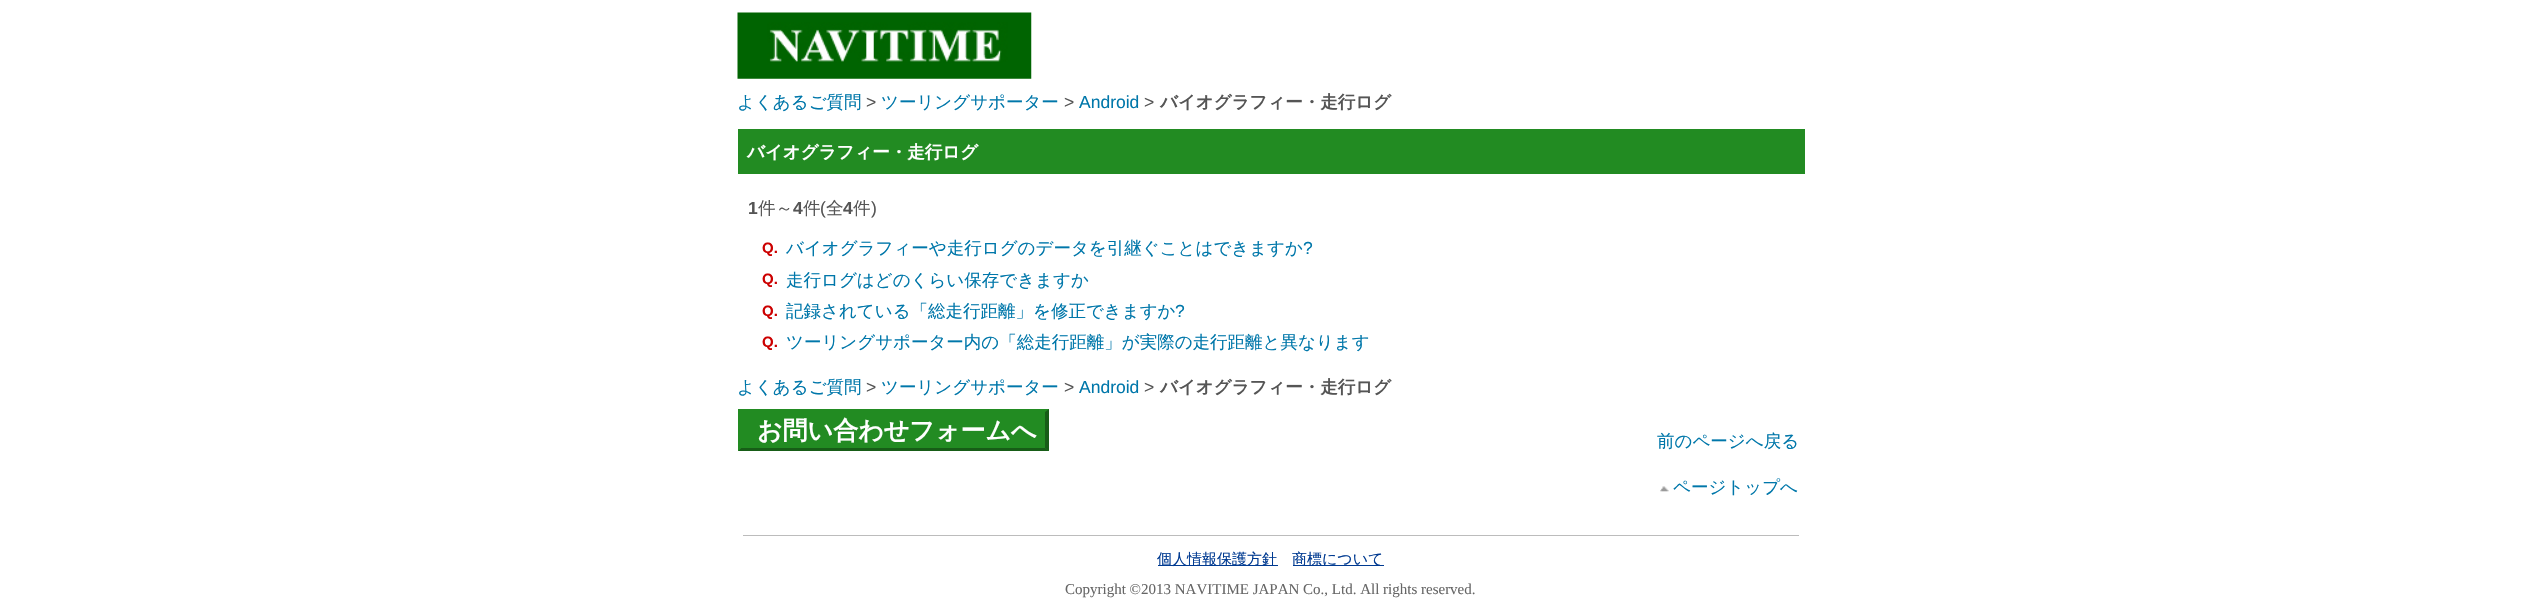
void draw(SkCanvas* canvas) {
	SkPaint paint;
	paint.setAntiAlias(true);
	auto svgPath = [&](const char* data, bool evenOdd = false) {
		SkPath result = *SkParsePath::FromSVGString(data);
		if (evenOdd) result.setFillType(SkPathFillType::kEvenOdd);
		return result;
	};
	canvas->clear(0xffffffff);
	canvas->drawImageRect(SkImages::DeferredFromEncodedData(SkData::MakeFromFileName("img1.png")), SkRect::MakeXYWH(737, 12, 295, 67), SkSamplingOptions());
	SkFont f1(fontMgr->matchFamilyStyle("WenQuanYi Zen Hei", SkFontStyle(500, SkFontStyle::kNormal_Width, SkFontStyle::kUpright_Slant)), 17.5);
	f1.setSubpixel(true);
	paint.setColor(0xff0077aa);
	canvas->drawString("よくあるご質問", 737, 108, f1, paint);
	SkFont f2(fontMgr->matchFamilyStyle("Liberation Sans", SkFontStyle::Normal()), 17.5);
	f2.setSubpixel(true);
	paint.setColor(0xff555555);
	canvas->drawString(">", 866, 108, f2, paint);
	paint.setColor(0xff0077aa);
	canvas->drawString("ツーリングサポーター", 881, 108, f1, paint);
	paint.setColor(0xff555555);
	canvas->drawString(">", 1064, 108, f2, paint);
	paint.setColor(0xff0077aa);
	canvas->drawString("Android", 1079, 108, f2, paint);
	paint.setColor(0xff555555);
	canvas->drawString(">", 1144, 108, f2, paint);
	SkFont f3(fontMgr->matchFamilyStyle("WenQuanYi Zen Hei", SkFontStyle::Bold()), 17.5);
	f3.setSubpixel(true);
	canvas->drawString("バイオグラフィー・走行ログ", 1160, 108, f3, paint);
	paint.setColor(0xff228b22);
	canvas->drawRect(SkRect::MakeXYWH(738, 129, 1067, 45), paint);
	paint.setColor(0xffffffff);
	canvas->drawString("バイオグラフィー・走行ログ", 747, 158, f3, paint);
	SkFont f4(fontMgr->matchFamilyStyle("Liberation Sans", SkFontStyle::Bold()), 17.5);
	f4.setSubpixel(true);
	paint.setColor(0xff555555);
	canvas->drawString("1", 748, 214, f4, paint);
	canvas->drawString("件～", 758, 214, f1, paint);
	canvas->drawString("4", 793, 214, f4, paint);
	canvas->drawString("件", 803, 214, f1, paint);
	canvas->drawString("(", 820, 214, f2, paint);
	canvas->drawString("全", 826, 214, f1, paint);
	canvas->drawString("4", 843, 214, f4, paint);
	canvas->drawString("件", 853, 214, f1, paint);
	canvas->drawString(")", 871, 214, f2, paint);
	SkFont f5(fontMgr->matchFamilyStyle("Liberation Sans", SkFontStyle::Bold()), 15);
	f5.setSubpixel(true);
	paint.setColor(0xffcc0000);
	canvas->drawString("Q.", 762, 253, f5, paint);
	paint.setColor(0xff0077aa);
	canvas->drawString("バイオグラフィーや走行ログのデータを引継ぐことはできますか", 786, 254, f1, paint);
	canvas->drawString("?", 1303, 254, f2, paint);
	paint.setColor(0xffcc0000);
	canvas->drawString("Q.", 762, 284, f5, paint);
	paint.setColor(0xff0077aa);
	canvas->drawString("走行ログはどのくらい保存できますか", 786, 286, f1, paint);
	paint.setColor(0xffcc0000);
	canvas->drawString("Q.", 762, 316, f5, paint);
	paint.setColor(0xff0077aa);
	canvas->drawString("記録されている「総走行距離」を修正できますか", 786, 317, f1, paint);
	canvas->drawString("?", 1175, 317, f2, paint);
	paint.setColor(0xffcc0000);
	canvas->drawString("Q.", 762, 347, f5, paint);
	paint.setColor(0xff0077aa);
	canvas->drawString("ツーリングサポーター内の「総走行距離」が実際の走行距離と異なります", 786, 348, f1, paint);
	canvas->drawString("よくあるご質問", 737, 393, f1, paint);
	paint.setColor(0xff555555);
	canvas->drawString(">", 866, 393, f2, paint);
	paint.setColor(0xff0077aa);
	canvas->drawString("ツーリングサポーター", 881, 393, f1, paint);
	paint.setColor(0xff555555);
	canvas->drawString(">", 1064, 393, f2, paint);
	paint.setColor(0xff0077aa);
	canvas->drawString("Android", 1079, 393, f2, paint);
	paint.setColor(0xff555555);
	canvas->drawString(">", 1144, 393, f2, paint);
	canvas->drawString("バイオグラフィー・走行ログ", 1160, 393, f3, paint);
	paint.setColor(0xff228b22);
	canvas->drawRect(SkRect::MakeXYWH(738, 409, 311, 42), paint);
	paint.setColor(0xff175d17);
	canvas->drawPath(svgPath("M1049 409V451L1045 448V412Z"), paint);
	canvas->drawPath(svgPath("M1049 451H738L741 448H1045Z"), paint);
	paint.setColor(0xff228b22);
	canvas->drawPath(svgPath("M738 451V409L741 412V448Z"), paint);
	SkFont f6(fontMgr->matchFamilyStyle("WenQuanYi Zen Hei", SkFontStyle::Bold()), 25);
	f6.setSubpixel(true);
	paint.setColor(0xffffffff);
	canvas->drawString("お問い合わせフォームへ", 757, 439, f6, paint);
	paint.setColor(0xff0077aa);
	canvas->drawString("前のページへ戻る", 1657, 447, f1, paint);
	canvas->drawImageRect(SkImages::DeferredFromEncodedData(SkData::MakeFromFileName("img2.png")), SkRect::MakeXYWH(1660, 486, 9, 6), SkSamplingOptions());
	canvas->drawString("ページトップへ", 1673, 493, f1, paint);
	paint.setColor(0xffbcbcbc);
	canvas->drawRect(SkRect::MakeXYWH(743, 535, 1056, 1), paint);
	paint.setColor(0xff003a91);
	canvas->drawRect(SkRect::MakeXYWH(1158, 565, 120, 1), paint);
	SkFont f7(fontMgr->matchFamilyStyle("WenQuanYi Zen Hei", SkFontStyle(500, SkFontStyle::kNormal_Width, SkFontStyle::kUpright_Slant)), 15);
	f7.setSubpixel(true);
	canvas->drawString("個人情報保護方針", 1157, 564, f7, paint);
	canvas->drawRect(SkRect::MakeXYWH(1293, 565, 91, 1), paint);
	canvas->drawString("商標について", 1292, 564, f7, paint);
	SkFont f8(fontMgr->matchFamilyStyle("Liberation Serif", SkFontStyle::Normal()), 15);
	f8.setSubpixel(true);
	paint.setColor(0xff666666);
	canvas->drawString("Copyright ©2013 NAVITIME JAPAN Co., Ltd. All rights reserved.", 1065, 594, f8, paint);
}
